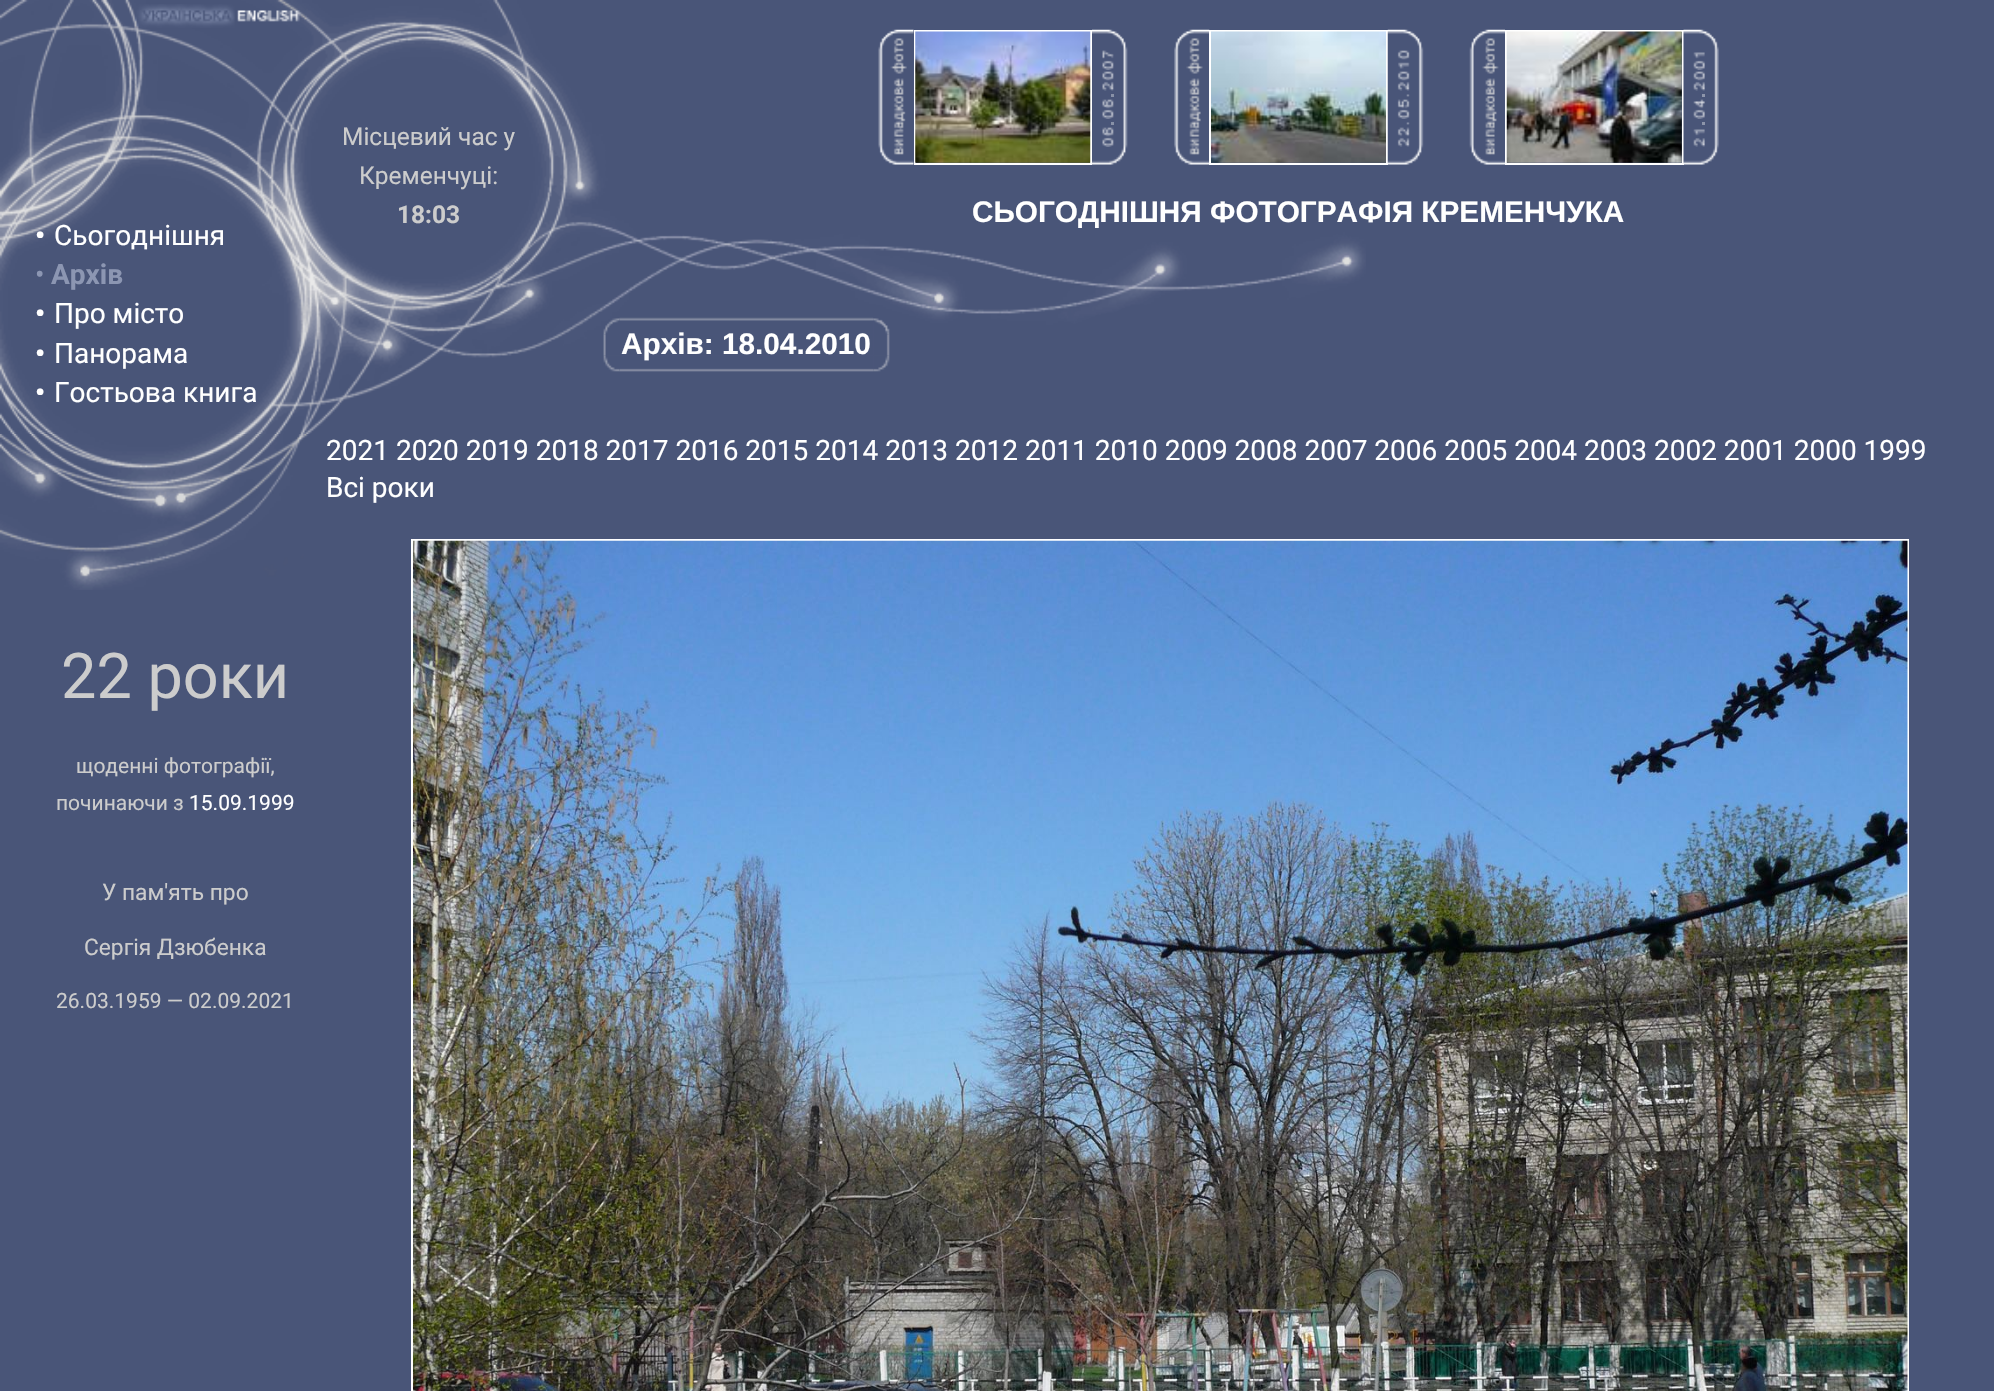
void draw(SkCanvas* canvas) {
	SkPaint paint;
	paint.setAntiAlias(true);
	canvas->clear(0xff495578);
	canvas->drawImageRect(SkImages::DeferredFromEncodedData(SkData::MakeFromFileName("img1.png")), SkRect::MakeXYWH(0, 0, 1366, 434), SkSamplingOptions());
	canvas->drawImageRect(SkImages::DeferredFromEncodedData(SkData::MakeFromFileName("img2.png")), SkRect::MakeXYWH(134, 4, 101, 24), SkSamplingOptions());
	canvas->drawImageRect(SkImages::DeferredFromEncodedData(SkData::MakeFromFileName("img3.png")), SkRect::MakeXYWH(237, 0, 70, 22), SkSamplingOptions());
	SkFont f1(fontMgr->matchFamilyStyle("Roboto", SkFontStyle::Normal()), 24.5);
	f1.setSubpixel(true);
	paint.setColor(0xffcccccc);
	canvas->drawString("Місцевий час у", 342, 145, f1, paint);
	canvas->drawString("Кременчуці:", 359, 184, f1, paint);
	SkFont f2(fontMgr->matchFamilyStyle("Roboto", SkFontStyle::Bold()), 24.5);
	f2.setSubpixel(true);
	canvas->drawString("18:03", 397, 223, f2, paint);
	SkFont f3(fontMgr->matchFamilyStyle("Roboto", SkFontStyle::Bold()), 28);
	f3.setSubpixel(true);
	paint.setColor(0xffffffff);
	canvas->drawString("•", 35, 245, f3, paint);
	SkFont f4(fontMgr->matchFamilyStyle("Roboto", SkFontStyle::Normal()), 28);
	f4.setSubpixel(true);
	canvas->drawString("Сьогоднішня", 54, 245, f4, paint);
	paint.setColor(0xff8c96b2);
	canvas->drawString("•", 35, 284, f4, paint);
	canvas->drawString("Архів", 51, 284, f3, paint);
	paint.setColor(0xffffffff);
	canvas->drawString("•", 35, 323, f3, paint);
	canvas->drawString("Про місто", 54, 323, f4, paint);
	canvas->drawString("•", 35, 363, f3, paint);
	canvas->drawString("Панорама", 54, 363, f4, paint);
	canvas->drawString("•", 35, 402, f3, paint);
	canvas->drawString("Гостьова книга", 54, 402, f4, paint);
	canvas->drawImageRect(SkImages::DeferredFromEncodedData(SkData::MakeFromFileName("img4.png")), SkRect::MakeXYWH(878, 29, 36, 136), SkSamplingOptions());
	paint.setStroke(true);
	paint.setStrokeWidth(2);
	canvas->drawRect(SkRect::MakeXYWH(915, 31, 176, 133), paint);
	canvas->drawImageRect(SkImages::DeferredFromEncodedData(SkData::MakeFromFileName("img5.png")), SkRect::MakeXYWH(915, 31, 176, 132), SkSamplingOptions());
	canvas->drawImageRect(SkImages::DeferredFromEncodedData(SkData::MakeFromFileName("img6.png")), SkRect::MakeXYWH(1092, 29, 36, 136), SkSamplingOptions());
	canvas->drawImageRect(SkImages::DeferredFromEncodedData(SkData::MakeFromFileName("img7.png")), SkRect::MakeXYWH(1102, 50, 12, 9), SkSamplingOptions());
	canvas->drawImageRect(SkImages::DeferredFromEncodedData(SkData::MakeFromFileName("img8.png")), SkRect::MakeXYWH(1102, 60, 12, 10), SkSamplingOptions());
	canvas->drawImageRect(SkImages::DeferredFromEncodedData(SkData::MakeFromFileName("img9.png")), SkRect::MakeXYWH(1102, 71, 12, 10), SkSamplingOptions());
	canvas->drawImageRect(SkImages::DeferredFromEncodedData(SkData::MakeFromFileName("img10.png")), SkRect::MakeXYWH(1102, 80, 12, 11), SkSamplingOptions());
	paint.setStroke(false);
	paint.setColor(0xff8891a7);
	canvas->drawRect(SkRect::MakeXYWH(1111, 94, 3, 3), paint);
	canvas->drawImageRect(SkImages::DeferredFromEncodedData(SkData::MakeFromFileName("img11.png")), SkRect::MakeXYWH(1102, 99, 12, 10), SkSamplingOptions());
	canvas->drawImageRect(SkImages::DeferredFromEncodedData(SkData::MakeFromFileName("img12.png")), SkRect::MakeXYWH(1102, 108, 12, 11), SkSamplingOptions());
	canvas->drawRect(SkRect::MakeXYWH(1111, 122, 3, 3), paint);
	canvas->drawImageRect(SkImages::DeferredFromEncodedData(SkData::MakeFromFileName("img11.png")), SkRect::MakeXYWH(1102, 127, 12, 10), SkSamplingOptions());
	canvas->drawImageRect(SkImages::DeferredFromEncodedData(SkData::MakeFromFileName("img13.png")), SkRect::MakeXYWH(1102, 136, 12, 11), SkSamplingOptions());
	canvas->drawImageRect(SkImages::DeferredFromEncodedData(SkData::MakeFromFileName("img14.png")), SkRect::MakeXYWH(1174, 29, 36, 136), SkSamplingOptions());
	paint.setStroke(true);
	paint.setColor(0xffffffff);
	canvas->drawRect(SkRect::MakeXYWH(1210, 31, 177, 133), paint);
	canvas->drawImageRect(SkImages::DeferredFromEncodedData(SkData::MakeFromFileName("img15.png")), SkRect::MakeXYWH(1211, 31, 175, 132), SkSamplingOptions());
	canvas->drawImageRect(SkImages::DeferredFromEncodedData(SkData::MakeFromFileName("img16.png")), SkRect::MakeXYWH(1387, 29, 37, 136), SkSamplingOptions());
	canvas->drawImageRect(SkImages::DeferredFromEncodedData(SkData::MakeFromFileName("img17.png")), SkRect::MakeXYWH(1397, 50, 13, 10), SkSamplingOptions());
	canvas->drawImageRect(SkImages::DeferredFromEncodedData(SkData::MakeFromFileName("img18.png")), SkRect::MakeXYWH(1398, 59, 12, 10), SkSamplingOptions());
	canvas->drawImageRect(SkImages::DeferredFromEncodedData(SkData::MakeFromFileName("img17.png")), SkRect::MakeXYWH(1397, 71, 13, 10), SkSamplingOptions());
	canvas->drawImageRect(SkImages::DeferredFromEncodedData(SkData::MakeFromFileName("img19.png")), SkRect::MakeXYWH(1397, 80, 13, 11), SkSamplingOptions());
	canvas->drawImageRect(SkImages::DeferredFromEncodedData(SkData::MakeFromFileName("img20.png")), SkRect::MakeXYWH(1406, 94, 4, 3), SkSamplingOptions());
	canvas->drawImageRect(SkImages::DeferredFromEncodedData(SkData::MakeFromFileName("img21.png")), SkRect::MakeXYWH(1397, 99, 13, 10), SkSamplingOptions());
	canvas->drawImageRect(SkImages::DeferredFromEncodedData(SkData::MakeFromFileName("img22.png")), SkRect::MakeXYWH(1397, 108, 13, 11), SkSamplingOptions());
	canvas->drawImageRect(SkImages::DeferredFromEncodedData(SkData::MakeFromFileName("img20.png")), SkRect::MakeXYWH(1406, 122, 4, 3), SkSamplingOptions());
	canvas->drawImageRect(SkImages::DeferredFromEncodedData(SkData::MakeFromFileName("img23.png")), SkRect::MakeXYWH(1397, 127, 13, 10), SkSamplingOptions());
	canvas->drawImageRect(SkImages::DeferredFromEncodedData(SkData::MakeFromFileName("img24.png")), SkRect::MakeXYWH(1397, 136, 13, 11), SkSamplingOptions());
	canvas->drawImageRect(SkImages::DeferredFromEncodedData(SkData::MakeFromFileName("img25.png")), SkRect::MakeXYWH(1469, 29, 36, 136), SkSamplingOptions());
	canvas->drawRect(SkRect::MakeXYWH(1506, 31, 177, 133), paint);
	canvas->drawImageRect(SkImages::DeferredFromEncodedData(SkData::MakeFromFileName("img26.png")), SkRect::MakeXYWH(1506, 31, 176, 132), SkSamplingOptions());
	canvas->drawImageRect(SkImages::DeferredFromEncodedData(SkData::MakeFromFileName("img27.png")), SkRect::MakeXYWH(1683, 29, 36, 136), SkSamplingOptions());
	canvas->drawImageRect(SkImages::DeferredFromEncodedData(SkData::MakeFromFileName("img28.png")), SkRect::MakeXYWH(1693, 52, 12, 7), SkSamplingOptions());
	canvas->drawImageRect(SkImages::DeferredFromEncodedData(SkData::MakeFromFileName("img29.png")), SkRect::MakeXYWH(1693, 60, 12, 10), SkSamplingOptions());
	canvas->drawImageRect(SkImages::DeferredFromEncodedData(SkData::MakeFromFileName("img30.png")), SkRect::MakeXYWH(1693, 71, 12, 10), SkSamplingOptions());
	canvas->drawImageRect(SkImages::DeferredFromEncodedData(SkData::MakeFromFileName("img31.png")), SkRect::MakeXYWH(1693, 80, 12, 11), SkSamplingOptions());
	paint.setStroke(false);
	paint.setColor(0xff8d95aa);
	canvas->drawRect(SkRect::MakeXYWH(1702, 94, 3, 3), paint);
	canvas->drawImageRect(SkImages::DeferredFromEncodedData(SkData::MakeFromFileName("img32.png")), SkRect::MakeXYWH(1693, 99, 12, 10), SkSamplingOptions());
	canvas->drawImageRect(SkImages::DeferredFromEncodedData(SkData::MakeFromFileName("img33.png")), SkRect::MakeXYWH(1693, 108, 12, 11), SkSamplingOptions());
	canvas->drawRect(SkRect::MakeXYWH(1702, 122, 3, 3), paint);
	canvas->drawImageRect(SkImages::DeferredFromEncodedData(SkData::MakeFromFileName("img28.png")), SkRect::MakeXYWH(1693, 129, 12, 7), SkSamplingOptions());
	canvas->drawImageRect(SkImages::DeferredFromEncodedData(SkData::MakeFromFileName("img34.png")), SkRect::MakeXYWH(1693, 138, 12, 9), SkSamplingOptions());
	SkFont f5(fontMgr->matchFamilyStyle("Arimo", SkFontStyle::Bold()), 29.75);
	f5.setSubpixel(true);
	paint.setColor(0xffffffff);
	canvas->drawString("СЬОГОДНІШНЯ ФОТОГРАФІЯ КРЕМЕНЧУКА", 972, 222, f5, paint);
	canvas->drawImageRect(SkImages::DeferredFromEncodedData(SkData::MakeFromFileName("img35.png")), SkRect::MakeXYWH(603, 317, 287, 55), SkSamplingOptions());
	canvas->drawString("Архів: 18.04.2010", 621, 354, f5, paint);
	canvas->drawString("2021 2020 2019 2018 2017 2016 2015 2014 2013 2012 2011 2010 2009 2008 2007 2006 2005 2004 2003 2002 2001 2000 1999", 326, 460, f4, paint);
	canvas->drawString("Всі роки", 326, 497, f4, paint);
	paint.setStroke(true);
	canvas->drawRect(SkRect::MakeXYWH(412, 540, 1496, 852), paint);
	canvas->drawImageRect(SkImages::DeferredFromEncodedData(SkData::MakeFromFileName("img36.png")), SkRect::MakeXYWH(413, 540, 1495, 851), SkSamplingOptions());
	canvas->drawImageRect(SkImages::DeferredFromEncodedData(SkData::MakeFromFileName("img37.png")), SkRect::MakeXYWH(0, 434, 309, 156), SkSamplingOptions());
	SkFont f6(fontMgr->matchFamilyStyle("Roboto", SkFontStyle::Normal()), 63);
	f6.setSubpixel(true);
	paint.setStroke(false);
	paint.setColor(0xffcccccc);
	canvas->drawString("22 роки", 61, 698, f6, paint);
	SkFont f7(fontMgr->matchFamilyStyle("Roboto", SkFontStyle::Normal()), 21);
	f7.setSubpixel(true);
	canvas->drawString("щоденні фотографії,", 76, 773, f7, paint);
	canvas->drawString("починаючи з", 56, 810, f7, paint);
	paint.setColor(0xffffffff);
	canvas->drawString("15.09.1999", 189, 810, f7, paint);
	SkFont f8(fontMgr->matchFamilyStyle("Roboto", SkFontStyle::Normal()), 22.75);
	f8.setSubpixel(true);
	paint.setColor(0xffcccccc);
	canvas->drawString("У пам'ять про", 102, 900, f8, paint);
	canvas->drawString("Сергія Дзюбенка", 84, 955, f8, paint);
	canvas->drawString("26.03.1959 — 02.09.2021", 56, 1008, f7, paint);
}
